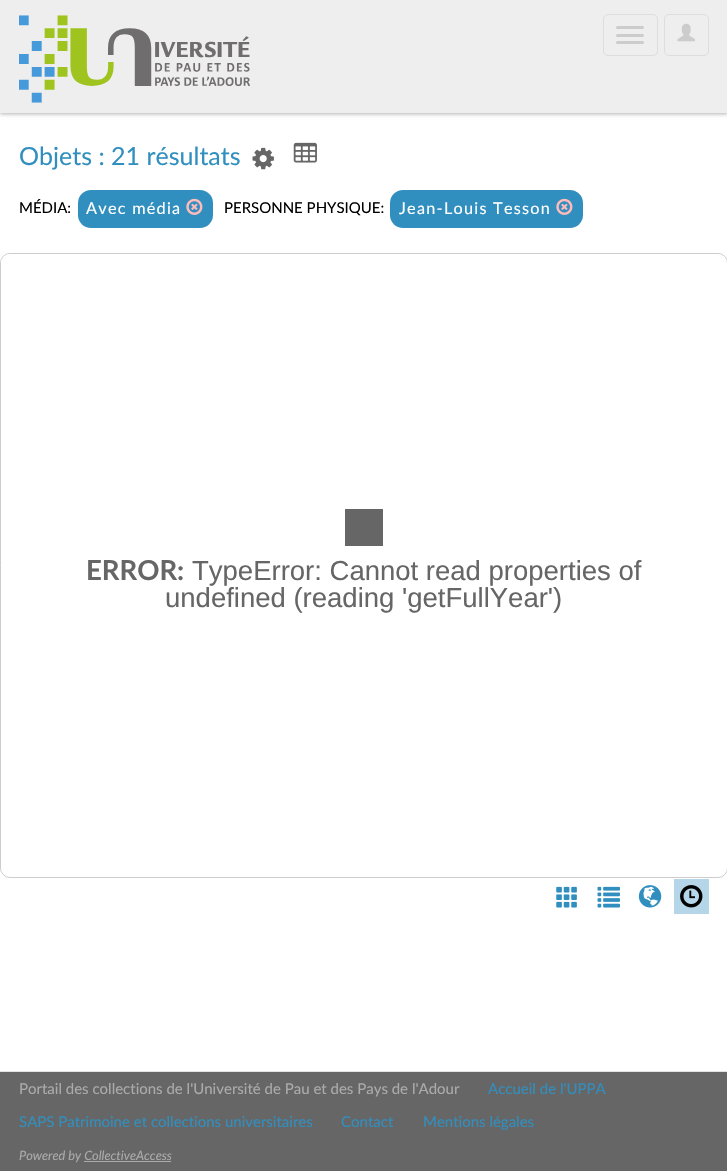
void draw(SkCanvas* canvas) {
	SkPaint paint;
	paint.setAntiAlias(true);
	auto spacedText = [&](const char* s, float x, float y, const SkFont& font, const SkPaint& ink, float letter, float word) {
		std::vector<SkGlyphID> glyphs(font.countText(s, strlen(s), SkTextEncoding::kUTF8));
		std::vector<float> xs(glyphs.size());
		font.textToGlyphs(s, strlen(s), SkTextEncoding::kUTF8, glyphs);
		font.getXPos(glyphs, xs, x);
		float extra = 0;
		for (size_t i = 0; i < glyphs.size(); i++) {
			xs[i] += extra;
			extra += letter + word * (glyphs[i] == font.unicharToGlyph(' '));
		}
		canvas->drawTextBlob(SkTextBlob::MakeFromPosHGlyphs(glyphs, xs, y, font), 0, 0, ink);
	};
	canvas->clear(0xffffffff);
	paint.setColor(0x4d000000);
	paint.setMaskFilter(SkMaskFilter::MakeBlur(kNormal_SkBlurStyle, 2));
	canvas->drawRect(SkRect::MakeXYWH(0, 0, 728, 114), paint);
	paint.setMaskFilter(nullptr);
	paint.setColor(0xffeeeeee);
	canvas->drawRect(SkRect::MakeXYWH(0, 0, 727, 113), paint);
	canvas->drawImageRect(SkImages::DeferredFromEncodedData(SkData::MakeFromFileName("img1.png")), SkRect::MakeXYWH(19, 15, 231, 88), SkSamplingOptions());
	paint.setStroke(true);
	paint.setStrokeWidth(1);
	paint.setColor(0xffdddddd);
	canvas->drawRoundRect(SkRect::MakeXYWH(603.5, 14.5, 54, 41), 4.5, 4.5, paint);
	paint.setStroke(false);
	paint.setColor(0xffcccccc);
	canvas->drawRoundRect(SkRect::MakeXYWH(616, 26, 28, 3), 1.5, 1.5, paint);
	canvas->drawRoundRect(SkRect::MakeXYWH(616, 34, 28, 3), 1.5, 1.5, paint);
	canvas->drawRoundRect(SkRect::MakeXYWH(616, 41, 28, 3), 1.5, 1.5, paint);
	paint.setStroke(true);
	paint.setColor(0xffdddddd);
	canvas->drawRoundRect(SkRect::MakeXYWH(664.5, 14.5, 44, 41), 4.5, 4.5, paint);
	canvas->drawImageRect(SkImages::DeferredFromEncodedData(SkData::MakeFromFileName("img2.png")), SkRect::MakeXYWH(677, 23, 18, 19), SkSamplingOptions());
	SkFont f1(fontMgr->matchFamilyStyle("Lato", SkFontStyle::Normal()), 25);
	f1.setSubpixel(true);
	paint.setStroke(false);
	paint.setColor(0xff318fbf);
	canvas->drawString("Objets : 21 résultats", 19, 165, f1, paint);
	canvas->drawImageRect(SkImages::DeferredFromEncodedData(SkData::MakeFromFileName("img3.png")), SkRect::MakeXYWH(252, 147, 22, 23), SkSamplingOptions());
	canvas->drawImageRect(SkImages::DeferredFromEncodedData(SkData::MakeFromFileName("img4.png")), SkRect::MakeXYWH(293, 142, 24, 21), SkSamplingOptions());
	SkFont f2(fontMgr->matchFamilyStyle("Lato", SkFontStyle::Normal()), 15);
	f2.setSubpixel(true);
	paint.setColor(0xff000000);
	canvas->drawString("MÉDIA:", 19, 213, f2, paint);
	paint.setColor(0xff318fbf);
	canvas->drawRoundRect(SkRect::MakeXYWH(78, 190, 135, 38), 13, 13, paint);
	SkFont f3(fontMgr->matchFamilyStyle("Lato", SkFontStyle::Normal()), 16.25);
	f3.setSubpixel(true);
	paint.setColor(0xffffffff);
	spacedText("Avec média", 86, 214, f3, paint, 1.25, 0);
	canvas->drawImageRect(SkImages::DeferredFromEncodedData(SkData::MakeFromFileName("img5.png")), SkRect::MakeXYWH(186, 198, 17, 17), SkSamplingOptions());
	paint.setColor(0xff000000);
	canvas->drawString("PERSONNE PHYSIQUE:", 224, 213, f2, paint);
	paint.setColor(0xff318fbf);
	canvas->drawRoundRect(SkRect::MakeXYWH(390, 190, 193, 38), 13, 13, paint);
	paint.setColor(0xffffffff);
	spacedText("Jean-Louis Tesson", 399, 214, f3, paint, 1.25, 0);
	canvas->drawImageRect(SkImages::DeferredFromEncodedData(SkData::MakeFromFileName("img5.png")), SkRect::MakeXYWH(556, 198, 17, 17), SkSamplingOptions());
	paint.setStroke(true);
	paint.setColor(0xffcccccc);
	canvas->drawRoundRect(SkRect::MakeXYWH(0.5, 253.5, 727, 624), 9.5, 9.5, paint);
	paint.setStroke(false);
	paint.setColor(0xccffffff);
	canvas->drawRoundRect(SkRect::MakeXYWH(1, 254, 725, 622), 9, 9, paint);
	paint.setColor(0xff666666);
	canvas->drawRect(SkRect::MakeXYWH(345, 509, 38, 37), paint);
	SkFont f4(fontMgr->matchFamilyStyle("Lato", SkFontStyle::Bold()), 27.5);
	f4.setSubpixel(true);
	canvas->drawString("ERROR:", 86, 580, f4, paint);
	SkFont f5(fontMgr->matchFamilyStyle("Liberation Sans", SkFontStyle::Normal()), 27.5);
	f5.setSubpixel(true);
	canvas->drawString("TypeError: Cannot read properties of", 192, 580, f5, paint);
	canvas->drawString("undefined (reading 'getFullYear')", 165, 607, f5, paint);
	canvas->drawImageRect(SkImages::DeferredFromEncodedData(SkData::MakeFromFileName("img6.png")), SkRect::MakeXYWH(556, 886, 21, 22), SkSamplingOptions());
	canvas->drawImageRect(SkImages::DeferredFromEncodedData(SkData::MakeFromFileName("img7.png")), SkRect::MakeXYWH(597, 886, 23, 22), SkSamplingOptions());
	canvas->drawImageRect(SkImages::DeferredFromEncodedData(SkData::MakeFromFileName("img8.png")), SkRect::MakeXYWH(638, 885, 24, 23), SkSamplingOptions());
	paint.setColor(0xffb4d6e8);
	canvas->drawRect(SkRect::MakeXYWH(674, 879, 35, 35), paint);
	canvas->drawImageRect(SkImages::DeferredFromEncodedData(SkData::MakeFromFileName("img9.png")), SkRect::MakeXYWH(680, 885, 23, 23), SkSamplingOptions());
	paint.setColor(0xff666666);
	canvas->drawRect(SkRect::MakeXYWH(0, 1072, 727, 99), paint);
	paint.setColor(0xffe3e3e3);
	canvas->drawRect(SkRect::MakeXYWH(0, 1071, 727, 1), paint);
	paint.setColor(0xffababab);
	canvas->drawString("Portail des collections de l'Université de Pau et des Pays de l'Adour", 19, 1094, f2, paint);
	paint.setColor(0xff318fbf);
	canvas->drawString("Accueil de l'UPPA", 488, 1094, f2, paint);
	canvas->drawString("SAPS Patrimoine et collections universitaires", 19, 1127, f2, paint);
	canvas->drawString("Contact", 341, 1127, f2, paint);
	canvas->drawString("Mentions légales", 423, 1127, f2, paint);
	SkFont f6(fontMgr->matchFamilyStyle("Lato", SkFontStyle::Italic()), 12.75);
	f6.setSubpixel(true);
	paint.setColor(0xffababab);
	canvas->drawString("Powered by CollectiveAccess", 19, 1160, f6, paint);
	canvas->drawRect(SkRect::MakeXYWH(84, 1161, 87, 1), paint);
}
